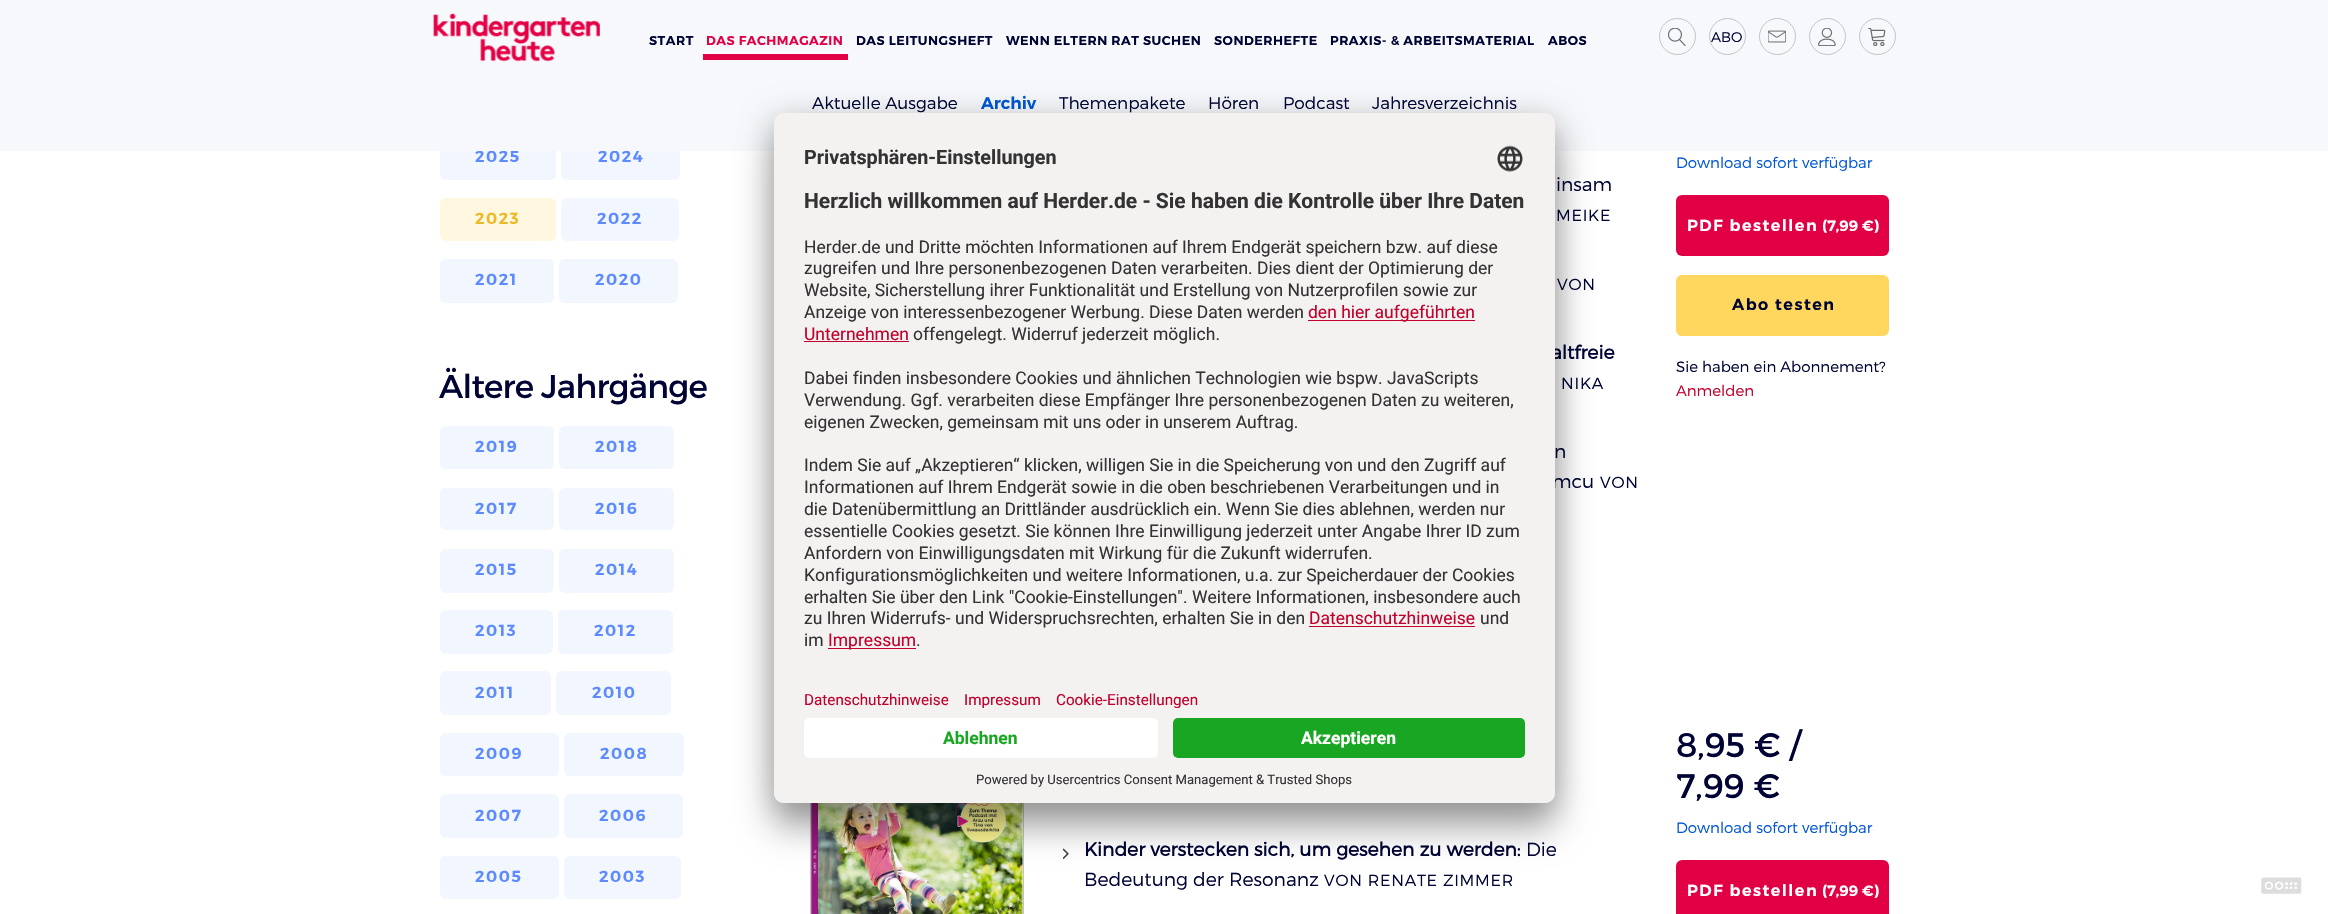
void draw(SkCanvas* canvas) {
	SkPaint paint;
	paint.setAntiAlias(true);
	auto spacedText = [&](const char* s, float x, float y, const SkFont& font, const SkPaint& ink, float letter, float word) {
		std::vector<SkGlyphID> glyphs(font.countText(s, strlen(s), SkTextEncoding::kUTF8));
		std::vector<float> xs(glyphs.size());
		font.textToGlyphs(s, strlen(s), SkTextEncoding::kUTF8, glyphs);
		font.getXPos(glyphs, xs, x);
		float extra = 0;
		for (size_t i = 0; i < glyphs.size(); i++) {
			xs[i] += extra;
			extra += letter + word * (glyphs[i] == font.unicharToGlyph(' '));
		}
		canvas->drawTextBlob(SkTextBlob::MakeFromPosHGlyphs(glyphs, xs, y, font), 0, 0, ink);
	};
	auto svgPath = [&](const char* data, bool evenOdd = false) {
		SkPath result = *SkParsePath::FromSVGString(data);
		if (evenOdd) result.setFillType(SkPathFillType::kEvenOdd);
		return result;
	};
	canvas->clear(0xffffffff);
	paint.setColor(0xfff1f6ff);
	canvas->drawRoundRect(SkRect::MakeXYWH(440, 136, 116, 44), 6, 6, paint);
	SkFont f1(fontMgr->matchFamilyStyle("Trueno", SkFontStyle(600, SkFontStyle::kNormal_Width, SkFontStyle::kUpright_Slant)), 16);
	f1.setSubpixel(true);
	paint.setColor(0xff5d8bff);
	spacedText("2025", 475, 162, f1, paint, 1.5, 0);
	paint.setColor(0xfff1f6ff);
	canvas->drawRoundRect(SkRect::MakeXYWH(561, 136, 119, 44), 6, 6, paint);
	paint.setColor(0xff5d8bff);
	spacedText("2024", 598, 162, f1, paint, 1.5, 0);
	paint.setColor(0xfff7f8fb);
	canvas->drawRect(SkRect::MakeXYWH(0, 0, 2328, 151), paint);
	SkFont f2(fontMgr->matchFamilyStyle("Trueno", SkFontStyle(600, SkFontStyle::kNormal_Width, SkFontStyle::kUpright_Slant)), 12.75);
	f2.setSubpixel(true);
	paint.setColor(0xff000434);
	spacedText("START", 649, 45, f2, paint, 0.5, 0);
	paint.setColor(0xffe20045);
	canvas->drawRect(SkRect::MakeXYWH(703, 54, 145, 6), paint);
	spacedText("DAS FACHMAGAZIN", 706, 45, f2, paint, 0.5, 0);
	paint.setColor(0xff000434);
	spacedText("DAS LEITUNGSHEFT", 856, 45, f2, paint, 0.5, 0);
	spacedText("WENN ELTERN RAT SUCHEN", 1006, 45, f2, paint, 0.5, 0);
	spacedText("SONDERHEFTE", 1214, 45, f2, paint, 0.5, 0);
	spacedText("PRAXIS- & ARBEITSMATERIAL", 1330, 45, f2, paint, 0.5, 0);
	spacedText("ABOS", 1548, 45, f2, paint, 0.5, 0);
	canvas->drawImageRect(SkImages::DeferredFromEncodedData(SkData::MakeFromFileName("img1.png")), SkRect::MakeXYWH(433, 13, 167, 49), SkSamplingOptions());
	canvas->drawImageRect(SkImages::DeferredFromEncodedData(SkData::MakeFromFileName("img2.png")), SkRect::MakeXYWH(1668, 28, 18, 18), SkSamplingOptions());
	paint.setStroke(true);
	paint.setStrokeWidth(1);
	paint.setColor(0xffc1c5c6);
	canvas->drawCircle(1677.5, 36.5, 18, paint);
	canvas->drawCircle(1727.5, 36.5, 18, paint);
	SkFont f3(fontMgr->matchFamilyStyle("Trueno", SkFontStyle(300, SkFontStyle::kNormal_Width, SkFontStyle::kUpright_Slant)), 14);
	f3.setSubpixel(true);
	paint.setStroke(false);
	paint.setColor(0xff000434);
	canvas->drawString("ABO", 1711, 42, f3, paint);
	canvas->drawImageRect(SkImages::DeferredFromEncodedData(SkData::MakeFromFileName("img3.png")), SkRect::MakeXYWH(1768, 30, 18, 13), SkSamplingOptions());
	paint.setStroke(true);
	paint.setColor(0xffc1c5c6);
	canvas->drawCircle(1777.5, 36.5, 18, paint);
	canvas->drawImageRect(SkImages::DeferredFromEncodedData(SkData::MakeFromFileName("img4.png")), SkRect::MakeXYWH(1818, 28, 18, 18), SkSamplingOptions());
	canvas->drawCircle(1827.5, 36.5, 18, paint);
	canvas->drawImageRect(SkImages::DeferredFromEncodedData(SkData::MakeFromFileName("img5.png")), SkRect::MakeXYWH(1868, 28, 18, 18), SkSamplingOptions());
	canvas->drawCircle(1877.5, 36.5, 18, paint);
	SkFont f4(fontMgr->matchFamilyStyle("Trueno", SkFontStyle(300, SkFontStyle::kNormal_Width, SkFontStyle::kUpright_Slant)), 16.9);
	f4.setSubpixel(true);
	paint.setStroke(false);
	paint.setColor(0xff000434);
	canvas->drawString("Aktuelle Ausgabe", 812, 109, f4, paint);
	SkFont f5(fontMgr->matchFamilyStyle("Trueno", SkFontStyle(600, SkFontStyle::kNormal_Width, SkFontStyle::kUpright_Slant)), 16.9);
	f5.setSubpixel(true);
	paint.setColor(0xff0056d7);
	canvas->drawString("Archiv", 981, 109, f5, paint);
	paint.setColor(0xff000434);
	canvas->drawString("Themenpakete", 1059, 109, f4, paint);
	canvas->drawString("Hören", 1208, 109, f4, paint);
	canvas->drawString("Podcast", 1283, 109, f4, paint);
	canvas->drawString("Jahresverzeichnis", 1372, 109, f4, paint);
	paint.setColor(0xfffff7df);
	canvas->drawRoundRect(SkRect::MakeXYWH(440, 198, 116, 43), 6, 6, paint);
	paint.setColor(0xffebba25);
	spacedText("2023", 475, 224, f1, paint, 1.5, 0);
	paint.setColor(0xfff1f6ff);
	canvas->drawRoundRect(SkRect::MakeXYWH(561, 198, 118, 43), 6, 6, paint);
	paint.setColor(0xff5d8bff);
	spacedText("2022", 597, 224, f1, paint, 1.5, 0);
	paint.setColor(0xfff1f6ff);
	canvas->drawRoundRect(SkRect::MakeXYWH(440, 259, 114, 44), 6, 6, paint);
	paint.setColor(0xff5d8bff);
	spacedText("2021", 475, 285, f1, paint, 1.5, 0);
	paint.setColor(0xfff1f6ff);
	canvas->drawRoundRect(SkRect::MakeXYWH(559, 259, 119, 44), 6, 6, paint);
	paint.setColor(0xff5d8bff);
	spacedText("2020", 595, 285, f1, paint, 1.5, 0);
	SkFont f6(fontMgr->matchFamilyStyle("Trueno", SkFontStyle::Normal()), 32.75);
	f6.setSubpixel(true);
	paint.setColor(0xff000434);
	spacedText("Ältere Jahrgänge", 439, 398, f6, paint, -0.7, 0);
	paint.setColor(0xfff1f6ff);
	canvas->drawRoundRect(SkRect::MakeXYWH(440, 426, 114, 43), 6, 6, paint);
	paint.setColor(0xff5d8bff);
	spacedText("2019", 475, 452, f1, paint, 1.5, 0);
	paint.setColor(0xfff1f6ff);
	canvas->drawRoundRect(SkRect::MakeXYWH(559, 426, 115, 43), 6, 6, paint);
	paint.setColor(0xff5d8bff);
	spacedText("2018", 595, 452, f1, paint, 1.5, 0);
	paint.setColor(0xfff1f6ff);
	canvas->drawRoundRect(SkRect::MakeXYWH(440, 488, 114, 42), 6, 6, paint);
	paint.setColor(0xff5d8bff);
	spacedText("2017", 475, 514, f1, paint, 1.5, 0);
	paint.setColor(0xfff1f6ff);
	canvas->drawRoundRect(SkRect::MakeXYWH(559, 488, 115, 42), 6, 6, paint);
	paint.setColor(0xff5d8bff);
	spacedText("2016", 595, 514, f1, paint, 1.5, 0);
	paint.setColor(0xfff1f6ff);
	canvas->drawRoundRect(SkRect::MakeXYWH(440, 549, 114, 44), 6, 6, paint);
	paint.setColor(0xff5d8bff);
	spacedText("2015", 475, 575, f1, paint, 1.5, 0);
	paint.setColor(0xfff1f6ff);
	canvas->drawRoundRect(SkRect::MakeXYWH(559, 549, 115, 44), 6, 6, paint);
	paint.setColor(0xff5d8bff);
	spacedText("2014", 595, 575, f1, paint, 1.5, 0);
	paint.setColor(0xfff1f6ff);
	canvas->drawRoundRect(SkRect::MakeXYWH(440, 610, 113, 44), 6, 6, paint);
	paint.setColor(0xff5d8bff);
	spacedText("2013", 475, 636, f1, paint, 1.5, 0);
	paint.setColor(0xfff1f6ff);
	canvas->drawRoundRect(SkRect::MakeXYWH(558, 610, 115, 44), 6, 6, paint);
	paint.setColor(0xff5d8bff);
	spacedText("2012", 594, 636, f1, paint, 1.5, 0);
	paint.setColor(0xfff1f6ff);
	canvas->drawRoundRect(SkRect::MakeXYWH(440, 671, 111, 44), 6, 6, paint);
	paint.setColor(0xff5d8bff);
	spacedText("2011", 475, 698, f1, paint, 1.5, 0);
	paint.setColor(0xfff1f6ff);
	canvas->drawRoundRect(SkRect::MakeXYWH(556, 671, 115, 44), 6, 6, paint);
	paint.setColor(0xff5d8bff);
	spacedText("2010", 592, 698, f1, paint, 1.5, 0);
	paint.setColor(0xfff1f6ff);
	canvas->drawRoundRect(SkRect::MakeXYWH(440, 733, 119, 43), 6, 6, paint);
	paint.setColor(0xff5d8bff);
	spacedText("2009", 475, 759, f1, paint, 1.5, 0);
	paint.setColor(0xfff1f6ff);
	canvas->drawRoundRect(SkRect::MakeXYWH(564, 733, 120, 43), 6, 6, paint);
	paint.setColor(0xff5d8bff);
	spacedText("2008", 600, 759, f1, paint, 1.5, 0);
	paint.setColor(0xfff1f6ff);
	canvas->drawRoundRect(SkRect::MakeXYWH(440, 794, 119, 44), 6, 6, paint);
	paint.setColor(0xff5d8bff);
	spacedText("2007", 475, 821, f1, paint, 1.5, 0);
	paint.setColor(0xfff1f6ff);
	canvas->drawRoundRect(SkRect::MakeXYWH(564, 794, 119, 44), 6, 6, paint);
	paint.setColor(0xff5d8bff);
	spacedText("2006", 599, 821, f1, paint, 1.5, 0);
	paint.setColor(0xfff1f6ff);
	canvas->drawRoundRect(SkRect::MakeXYWH(440, 856, 119, 43), 6, 6, paint);
	paint.setColor(0xff5d8bff);
	spacedText("2005", 475, 882, f1, paint, 1.5, 0);
	paint.setColor(0xfff1f6ff);
	canvas->drawRoundRect(SkRect::MakeXYWH(564, 856, 117, 43), 6, 6, paint);
	paint.setColor(0xff5d8bff);
	spacedText("2003", 599, 882, f1, paint, 1.5, 0);
	SkFont f7(fontMgr->matchFamilyStyle("Trueno", SkFontStyle(300, SkFontStyle::kNormal_Width, SkFontStyle::kUpright_Slant)), 18.75);
	f7.setSubpixel(true);
	paint.setColor(0xff000434);
	canvas->drawString("insam", 1556, 191, f7, paint);
	SkFont f8(fontMgr->matchFamilyStyle("Trueno", SkFontStyle(300, SkFontStyle::kNormal_Width, SkFontStyle::kUpright_Slant)), 16);
	f8.setSubpixel(true);
	spacedText("MEIKE", 1556, 221, f8, paint, 0.75, 0);
	spacedText("VON", 1557, 290, f8, paint, 0.75, 0);
	SkFont f9(fontMgr->matchFamilyStyle("Trueno", SkFontStyle::Bold()), 18.75);
	f9.setSubpixel(true);
	canvas->drawString("altfreie", 1551, 359, f9, paint);
	spacedText("NIKA", 1561, 389, f8, paint, 0.75, 0);
	canvas->drawString("n", 1554, 458, f7, paint);
	canvas->drawString("mcu", 1552, 488, f7, paint);
	spacedText("VON", 1600, 488, f8, paint, 0.75, 0);
	SkFont f10(fontMgr->matchFamilyStyle("Trueno", SkFontStyle(300, SkFontStyle::kNormal_Width, SkFontStyle::kUpright_Slant)), 15);
	f10.setSubpixel(true);
	paint.setColor(0xff0056d7);
	canvas->drawString("Download sofort verfügbar", 1676, 168, f10, paint);
	paint.setColor(0xffe20045);
	canvas->drawRoundRect(SkRect::MakeXYWH(1676, 195, 213, 61), 6, 6, paint);
	paint.setColor(0xffffffff);
	spacedText("PDF bestellen", 1687, 231, f1, paint, 1.5, 0);
	SkFont f11(fontMgr->matchFamilyStyle("Trueno", SkFontStyle(600, SkFontStyle::kNormal_Width, SkFontStyle::kUpright_Slant)), 15);
	f11.setSubpixel(true);
	canvas->drawString("(7,99 €)", 1822, 231, f11, paint);
	paint.setColor(0xffffd75e);
	canvas->drawRoundRect(SkRect::MakeXYWH(1676, 275, 213, 61), 6, 6, paint);
	paint.setColor(0xff000434);
	spacedText("Abo testen", 1732, 310, f1, paint, 1.5, 0);
	canvas->drawString("Sie haben ein Abonnement?", 1676, 372, f10, paint);
	paint.setColor(0xffc1002b);
	canvas->drawString("Anmelden", 1676, 396, f10, paint);
	paint.setStroke(true);
	paint.setColor(0xffc1c5c6);
	canvas->drawRect(SkRect::MakeXYWH(810.5, 726.5, 213, 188), paint);
	canvas->drawImageRect(SkImages::DeferredFromEncodedData(SkData::MakeFromFileName("img6.png")), SkRect::MakeXYWH(811, 803, 212, 111), SkSamplingOptions());
	canvas->drawImageRect(SkImages::DeferredFromEncodedData(SkData::MakeFromFileName("img7.png")), SkRect::MakeXYWH(1063, 848, 6, 11), SkSamplingOptions());
	paint.setStroke(false);
	paint.setColor(0xff000434);
	canvas->drawString("Kinder verstecken sich, um gesehen zu werden:", 1084, 856, f9, paint);
	canvas->drawString("Die", 1526, 856, f7, paint);
	canvas->drawString("Bedeutung der Resonanz", 1084, 886, f7, paint);
	spacedText("VON RENATE ZIMMER", 1324, 886, f8, paint, 0.75, 0);
	SkFont f12(fontMgr->matchFamilyStyle("Trueno", SkFontStyle::Normal()), 34);
	f12.setSubpixel(true);
	canvas->drawString("8,95 € /", 1676, 757, f12, paint);
	canvas->drawString("7,99 €", 1676, 798, f12, paint);
	paint.setColor(0xff0056d7);
	canvas->drawString("Download sofort verfügbar", 1676, 833, f10, paint);
	paint.setColor(0xffe20045);
	canvas->drawRoundRect(SkRect::MakeXYWH(1676, 860, 213, 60), 6, 6, paint);
	paint.setColor(0xffffffff);
	spacedText("PDF bestellen", 1687, 896, f1, paint, 1.5, 0);
	canvas->drawString("(7,99 €)", 1822, 896, f11, paint);
	paint.setColor(0x4d000000);
	paint.setMaskFilter(SkMaskFilter::MakeBlur(kNormal_SkBlurStyle, 17.5));
	canvas->drawRoundRect(SkRect::MakeXYWH(774, 138, 781, 690), 10, 10, paint);
	paint.setMaskFilter(nullptr);
	paint.setColor(0x38000000);
	paint.setMaskFilter(SkMaskFilter::MakeBlur(kNormal_SkBlurStyle, 16));
	canvas->drawRoundRect(SkRect::MakeXYWH(774, 119, 781, 690), 10, 10, paint);
	paint.setMaskFilter(nullptr);
	paint.setColor(0xfff4f1f1);
	canvas->drawRoundRect(SkRect::MakeXYWH(774, 113, 781, 690), 10, 10, paint);
	SkFont f13(fontMgr->matchFamilyStyle("Roboto", SkFontStyle::Bold()), 19.75);
	f13.setSubpixel(true);
	paint.setColor(0xff333333);
	canvas->drawString("Privatsphären-Einstellungen", 804, 164, f13, paint);
	canvas->drawImageRect(SkImages::DeferredFromEncodedData(SkData::MakeFromFileName("img8.png")), SkRect::MakeXYWH(1497, 145, 26, 27), SkSamplingOptions());
	SkFont f14(fontMgr->matchFamilyStyle("Roboto", SkFontStyle::Bold()), 21);
	f14.setSubpixel(true);
	canvas->drawString("Herzlich willkommen auf Herder.de - Sie haben die Kontrolle über Ihre Daten", 804, 208, f14, paint);
	SkFont f15(fontMgr->matchFamilyStyle("Roboto", SkFontStyle::Normal()), 17.5);
	f15.setSubpixel(true);
	canvas->drawString("Herder.de und Dritte möchten Informationen auf Ihrem Endgerät speichern bzw. auf diese", 804, 253, f15, paint);
	canvas->drawString("zugreifen und Ihre personenbezogenen Daten verarbeiten. Dies dient der Optimierung der", 804, 274, f15, paint);
	canvas->drawString("Website, Sicherstellung ihrer Funktionalität und Erstellung von Nutzerprofilen sowie zur", 804, 296, f15, paint);
	canvas->drawString("Anzeige von interessenbezogener Werbung. Diese Daten werden", 804, 318, f15, paint);
	paint.setColor(0xffc1002b);
	canvas->drawRect(SkRect::MakeXYWH(1308, 320, 167, 1), paint);
	canvas->drawString("den hier aufgeführten", 1308, 318, f15, paint);
	canvas->drawString("Unternehmen", 804, 340, f15, paint);
	canvas->drawRect(SkRect::MakeXYWH(804, 341, 105, 1), paint);
	paint.setColor(0xff333333);
	canvas->drawString("offengelegt. Widerruf jederzeit möglich.", 913, 340, f15, paint);
	canvas->drawString("Dabei finden insbesondere Cookies und ähnlichen Technologien wie bspw. JavaScripts", 804, 384, f15, paint);
	canvas->drawString("Verwendung. Ggf. verarbeiten diese Empfänger Ihre personenbezogenen Daten zu weiteren,", 804, 406, f15, paint);
	canvas->drawString("eigenen Zwecken, gemeinsam mit uns oder in unserem Auftrag.", 804, 428, f15, paint);
	canvas->drawString("Indem Sie auf „Akzeptieren“ klicken, willigen Sie in die Speicherung von und den Zugriff auf", 804, 471, f15, paint);
	canvas->drawString("Informationen auf Ihrem Endgerät sowie in die oben beschriebenen Verarbeitungen und in", 804, 493, f15, paint);
	canvas->drawString("die Datenübermittlung an Drittländer ausdrücklich ein. Wenn Sie dies ablehnen, werden nur", 804, 515, f15, paint);
	canvas->drawString("essentielle Cookies gesetzt. Sie können Ihre Einwilligung jederzeit unter Angabe Ihrer ID zum", 804, 537, f15, paint);
	canvas->drawString("Anfordern von Einwilligungsdaten mit Wirkung für die Zukunft widerrufen.", 804, 559, f15, paint);
	canvas->drawString("Konfigurationsmöglichkeiten und weitere Informationen, u.a. zur Speicherdauer der Cookies", 804, 581, f15, paint);
	canvas->drawString("erhalten Sie über den Link \"Cookie-Einstellungen\". Weitere Informationen, insbesondere auch", 804, 603, f15, paint);
	canvas->drawString("zu Ihren Widerrufs- und Widerspruchsrechten, erhalten Sie in den", 804, 624, f15, paint);
	paint.setColor(0xffc1002b);
	canvas->drawString("Datenschutzhinweise", 1309, 624, f15, paint);
	canvas->drawRect(SkRect::MakeXYWH(1309, 626, 166, 1), paint);
	paint.setColor(0xff333333);
	canvas->drawString("und", 1480, 624, f15, paint);
	canvas->drawString("im", 804, 646, f15, paint);
	paint.setColor(0xffc1002b);
	canvas->drawRect(SkRect::MakeXYWH(828, 648, 88, 1), paint);
	canvas->drawString("Impressum", 828, 646, f15, paint);
	paint.setColor(0xff333333);
	canvas->drawString(".", 916, 646, f15, paint);
	SkFont f16(fontMgr->matchFamilyStyle("Roboto", SkFontStyle::Normal()), 15.25);
	f16.setSubpixel(true);
	paint.setColor(0xffc1002b);
	canvas->drawString("Datenschutzhinweise", 804, 705, f16, paint);
	canvas->drawString("Impressum", 964, 705, f16, paint);
	canvas->drawString("Cookie-Einstellungen", 1056, 705, f16, paint);
	paint.setColor(0xfff4f1f1);
	canvas->drawPath(svgPath("M774 708H1555V793C1555 798.5 1550.5 803 1545 803H784C778.5 803 774 798.5 774 793Z"), paint);
	paint.setColor(0xffffffff);
	canvas->drawRoundRect(SkRect::MakeXYWH(804, 718, 354, 40), 5, 5, paint);
	SkFont f17(fontMgr->matchFamilyStyle("Roboto", SkFontStyle::Bold()), 17.5);
	f17.setSubpixel(true);
	paint.setColor(0xff19a723);
	canvas->drawString("Ablehnen", 943, 744, f17, paint);
	canvas->drawRoundRect(SkRect::MakeXYWH(1173, 718, 352, 40), 5, 5, paint);
	paint.setColor(0xffffffff);
	canvas->drawString("Akzeptieren", 1301, 744, f17, paint);
	SkFont f18(fontMgr->matchFamilyStyle("Roboto", SkFontStyle::Normal()), 13.1);
	f18.setSubpixel(true);
	paint.setColor(0xff333333);
	canvas->drawString("Powered by Usercentrics Consent Management & Trusted Shops", 976, 784, f18, paint);
	canvas->drawImageRect(SkImages::DeferredFromEncodedData(SkData::MakeFromFileName("img9.png")), SkRect::MakeXYWH(2261, 877, 41, 17), SkSamplingOptions());
}
